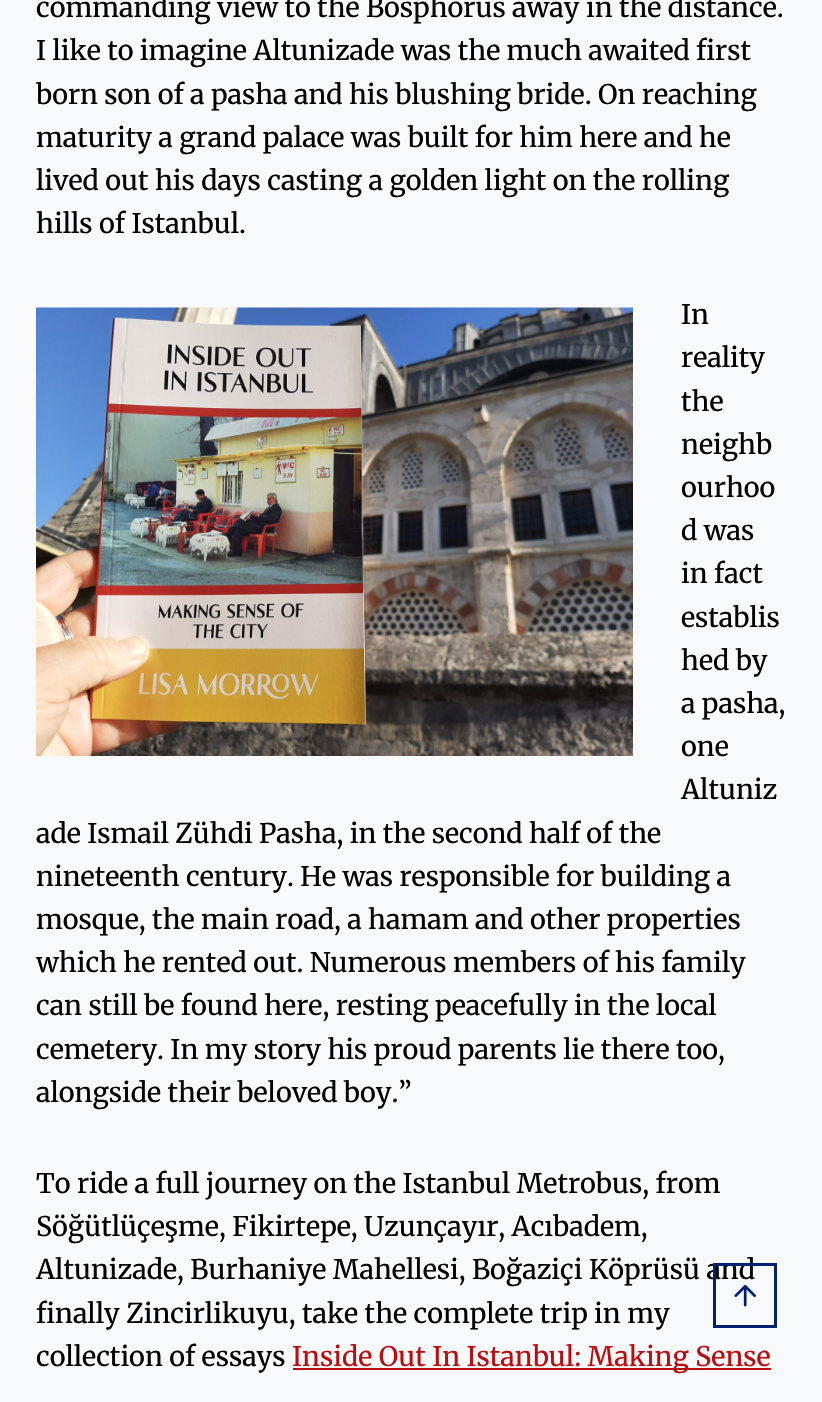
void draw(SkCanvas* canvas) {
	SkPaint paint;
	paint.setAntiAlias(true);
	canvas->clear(0xfff8f9fa);
	SkFont f1(fontMgr->matchFamilyStyle("Merriweather", SkFontStyle::Normal()), 27);
	f1.setSubpixel(true);
	paint.setColor(0xff000004);
	canvas->drawString("commanding view to the Bosphorus away in the distance.", 36, 17, f1, paint);
	canvas->drawString("I like to imagine Altunizade was the much awaited first", 36, 60, f1, paint);
	canvas->drawString("born son of a pasha and his blushing bride. On reaching", 36, 104, f1, paint);
	canvas->drawString("maturity a grand palace was built for him here and he", 36, 147, f1, paint);
	canvas->drawString("lived out his days casting a golden light on the rolling", 36, 190, f1, paint);
	canvas->drawString("hills of Istanbul.", 36, 233, f1, paint);
	canvas->drawString("In", 681, 324, f1, paint);
	canvas->drawString("reality", 681, 367, f1, paint);
	canvas->drawString("the", 681, 411, f1, paint);
	canvas->drawString("neighb", 681, 454, f1, paint);
	canvas->drawString("ourhoo", 681, 497, f1, paint);
	canvas->drawString("d was", 681, 540, f1, paint);
	canvas->drawString("in fact", 681, 583, f1, paint);
	canvas->drawString("establis", 681, 627, f1, paint);
	canvas->drawString("hed by", 681, 670, f1, paint);
	canvas->drawString("a pasha,", 681, 713, f1, paint);
	canvas->drawString("one", 681, 756, f1, paint);
	canvas->drawString("Altuniz", 681, 799, f1, paint);
	canvas->drawString("ade Ismail Zühdi Pasha, in the second half of the", 36, 843, f1, paint);
	canvas->drawString("nineteenth century. He was responsible for building a", 36, 886, f1, paint);
	canvas->drawString("mosque, the main road, a hamam and other properties", 36, 929, f1, paint);
	canvas->drawString("which he rented out. Numerous members of his family", 36, 972, f1, paint);
	canvas->drawString("can still be found here, resting peacefully in the local", 36, 1015, f1, paint);
	canvas->drawString("cemetery. In my story his proud parents lie there too,", 36, 1059, f1, paint);
	canvas->drawString("alongside their beloved boy.”", 36, 1102, f1, paint);
	canvas->drawImageRect(SkImages::DeferredFromEncodedData(SkData::MakeFromFileName("img1.png")), SkRect::MakeXYWH(36, 307, 597, 449), SkSamplingOptions());
	canvas->drawString("To ride a full journey on the Istanbul Metrobus, from", 36, 1193, f1, paint);
	canvas->drawString("Söğütlüçeşme, Fikirtepe, Uzunçayır, Acıbadem,", 36, 1236, f1, paint);
	canvas->drawString("Altunizade, Burhaniye Mahellesi, Boğaziçi Köprüsü and", 36, 1279, f1, paint);
	canvas->drawString("finally Zincirlikuyu, take the complete trip in my", 36, 1323, f1, paint);
	canvas->drawString("collection of essays", 36, 1366, f1, paint);
	paint.setColor(0xffbe0b0e);
	canvas->drawRect(SkRect::MakeXYWH(293, 1368, 478, 2), paint);
	canvas->drawString("Inside Out In Istanbul: Making Sense", 292, 1366, f1, paint);
	paint.setStroke(true);
	paint.setStrokeWidth(3);
	paint.setColor(0xff032075);
	canvas->drawRect(SkRect::MakeXYWH(714.5, 1264.5, 61, 62), paint);
	canvas->drawImageRect(SkImages::DeferredFromEncodedData(SkData::MakeFromFileName("img2.png")), SkRect::MakeXYWH(734, 1284, 22, 23), SkSamplingOptions());
}
